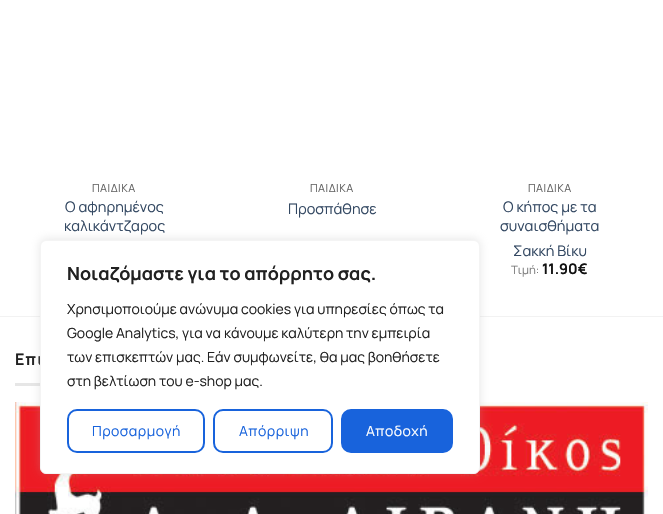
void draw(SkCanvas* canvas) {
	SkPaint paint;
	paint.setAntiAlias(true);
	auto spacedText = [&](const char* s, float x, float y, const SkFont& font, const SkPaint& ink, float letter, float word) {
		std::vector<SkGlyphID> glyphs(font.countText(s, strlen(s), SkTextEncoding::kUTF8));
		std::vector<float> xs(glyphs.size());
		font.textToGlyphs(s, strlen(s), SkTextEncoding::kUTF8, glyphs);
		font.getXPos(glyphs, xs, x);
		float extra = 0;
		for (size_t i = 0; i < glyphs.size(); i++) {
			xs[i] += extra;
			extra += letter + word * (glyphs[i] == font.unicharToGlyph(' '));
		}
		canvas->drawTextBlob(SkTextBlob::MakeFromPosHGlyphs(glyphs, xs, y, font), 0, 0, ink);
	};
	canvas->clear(0xffffffff);
	SkFont f1(fontMgr->matchFamilyStyle("Manrope", SkFontStyle::Normal()), 11);
	f1.setSubpixel(true);
	paint.setColor(0xff646464);
	spacedText("ΠΑΙΔΙΚΑ", 92, 192, f1, paint, 0.5, 0);
	SkFont f2(fontMgr->matchFamilyStyle("Manrope", SkFontStyle::Normal()), 14.5);
	f2.setSubpixel(true);
	paint.setColor(0xff334862);
	canvas->drawString("Ο αφηρημένος", 65, 212, f2, paint);
	canvas->drawString("καλικάντζαρος", 64, 231, f2, paint);
	paint.setColor(0xff646464);
	spacedText("ΠΑΙΔΙΚΑ", 310, 192, f1, paint, 0.5, 0);
	paint.setColor(0xff334862);
	canvas->drawString("Προσπάθησε", 288, 214, f2, paint);
	paint.setColor(0xff646464);
	spacedText("ΠΑΙΔΙΚΑ", 528, 192, f1, paint, 0.5, 0);
	paint.setColor(0xff334862);
	canvas->drawString("Ο κήπος με τα", 503, 212, f2, paint);
	canvas->drawString("συναισθήματα", 500, 231, f2, paint);
	canvas->drawString("Σακκή Βίκυ", 513, 256, f2, paint);
	SkFont f3(fontMgr->matchFamilyStyle("Manrope", SkFontStyle::Normal()), 11.5);
	f3.setSubpixel(true);
	paint.setColor(0xff7a7a7a);
	canvas->drawString("Τιμή:", 511, 274, f3, paint);
	SkFont f4(fontMgr->matchFamilyStyle("Manrope", SkFontStyle::Bold()), 14.5);
	f4.setSubpixel(true);
	paint.setColor(0xff111111);
	canvas->drawString("11.90€", 542, 274, f4, paint);
	paint.setColor(0xfff2f2f2);
	canvas->drawRect(SkRect::MakeXYWH(0, 316, 663, 1), paint);
	SkFont f5(fontMgr->matchFamilyStyle("Manrope", SkFontStyle::Bold()), 16);
	f5.setSubpixel(true);
	paint.setColor(0xff212121);
	spacedText("Επι", 15, 365, f5, paint, 1, 0);
	paint.setColor(0xffe6e6e6);
	canvas->drawRect(SkRect::MakeXYWH(15, 383, 30, 3), paint);
	canvas->drawImageRect(SkImages::DeferredFromEncodedData(SkData::MakeFromFileName("img1.png")), SkRect::MakeXYWH(15, 402, 633, 112), SkSamplingOptions());
	paint.setColor(0x4dacabab);
	paint.setMaskFilter(SkMaskFilter::MakeBlur(kNormal_SkBlurStyle, 5));
	canvas->drawRoundRect(SkRect::MakeXYWH(40, 239, 440, 234), 6, 6, paint);
	paint.setMaskFilter(nullptr);
	paint.setColor(0xffffffff);
	canvas->drawRoundRect(SkRect::MakeXYWH(40.5, 240.5, 439, 233), 5.5, 5.5, paint);
	paint.setStroke(true);
	paint.setStrokeWidth(1);
	paint.setColor(0xfff4f4f4);
	canvas->drawRoundRect(SkRect::MakeXYWH(40.5, 240.5, 439, 233), 5.5, 5.5, paint);
	SkFont f6(fontMgr->matchFamilyStyle("Manrope", SkFontStyle::Bold()), 18);
	f6.setSubpixel(true);
	paint.setStroke(false);
	paint.setColor(0xff212121);
	canvas->drawString("Νοιαζόμαστε για το απόρρητο σας.", 67, 280, f6, paint);
	SkFont f7(fontMgr->matchFamilyStyle("Manrope", SkFontStyle::Normal()), 14);
	f7.setSubpixel(true);
	canvas->drawString("Χρησιμοποιούμε ανώνυμα cookies για υπηρεσίες όπως τα", 67, 314, f7, paint);
	canvas->drawString("Google Analytics, για να κάνουμε καλύτερη την εμπειρία", 67, 338, f7, paint);
	canvas->drawString("των επισκεπτών μας. Εάν συμφωνείτε, θα μας βοηθήσετε", 67, 362, f7, paint);
	canvas->drawString("στη βελτίωση του e-shop μας.", 67, 386, f7, paint);
	paint.setStroke(true);
	paint.setStrokeWidth(2);
	paint.setColor(0xff1863dc);
	canvas->drawRoundRect(SkRect::MakeXYWH(68, 410, 136, 42), 9, 9, paint);
	paint.setStroke(false);
	spacedText("Προσαρμογή", 92, 436, f7, paint, 0.5, 0);
	paint.setStroke(true);
	canvas->drawRoundRect(SkRect::MakeXYWH(214, 410, 118, 42), 9, 9, paint);
	paint.setStroke(false);
	spacedText("Απόρριψη", 239, 436, f7, paint, 0.5, 0);
	canvas->drawRoundRect(SkRect::MakeXYWH(342, 410, 110, 42), 9, 9, paint);
	paint.setStroke(true);
	canvas->drawRoundRect(SkRect::MakeXYWH(342, 410, 110, 42), 9, 9, paint);
	paint.setStroke(false);
	paint.setColor(0xffffffff);
	spacedText("Αποδοχή", 366, 436, f7, paint, 0.5, 0);
}
